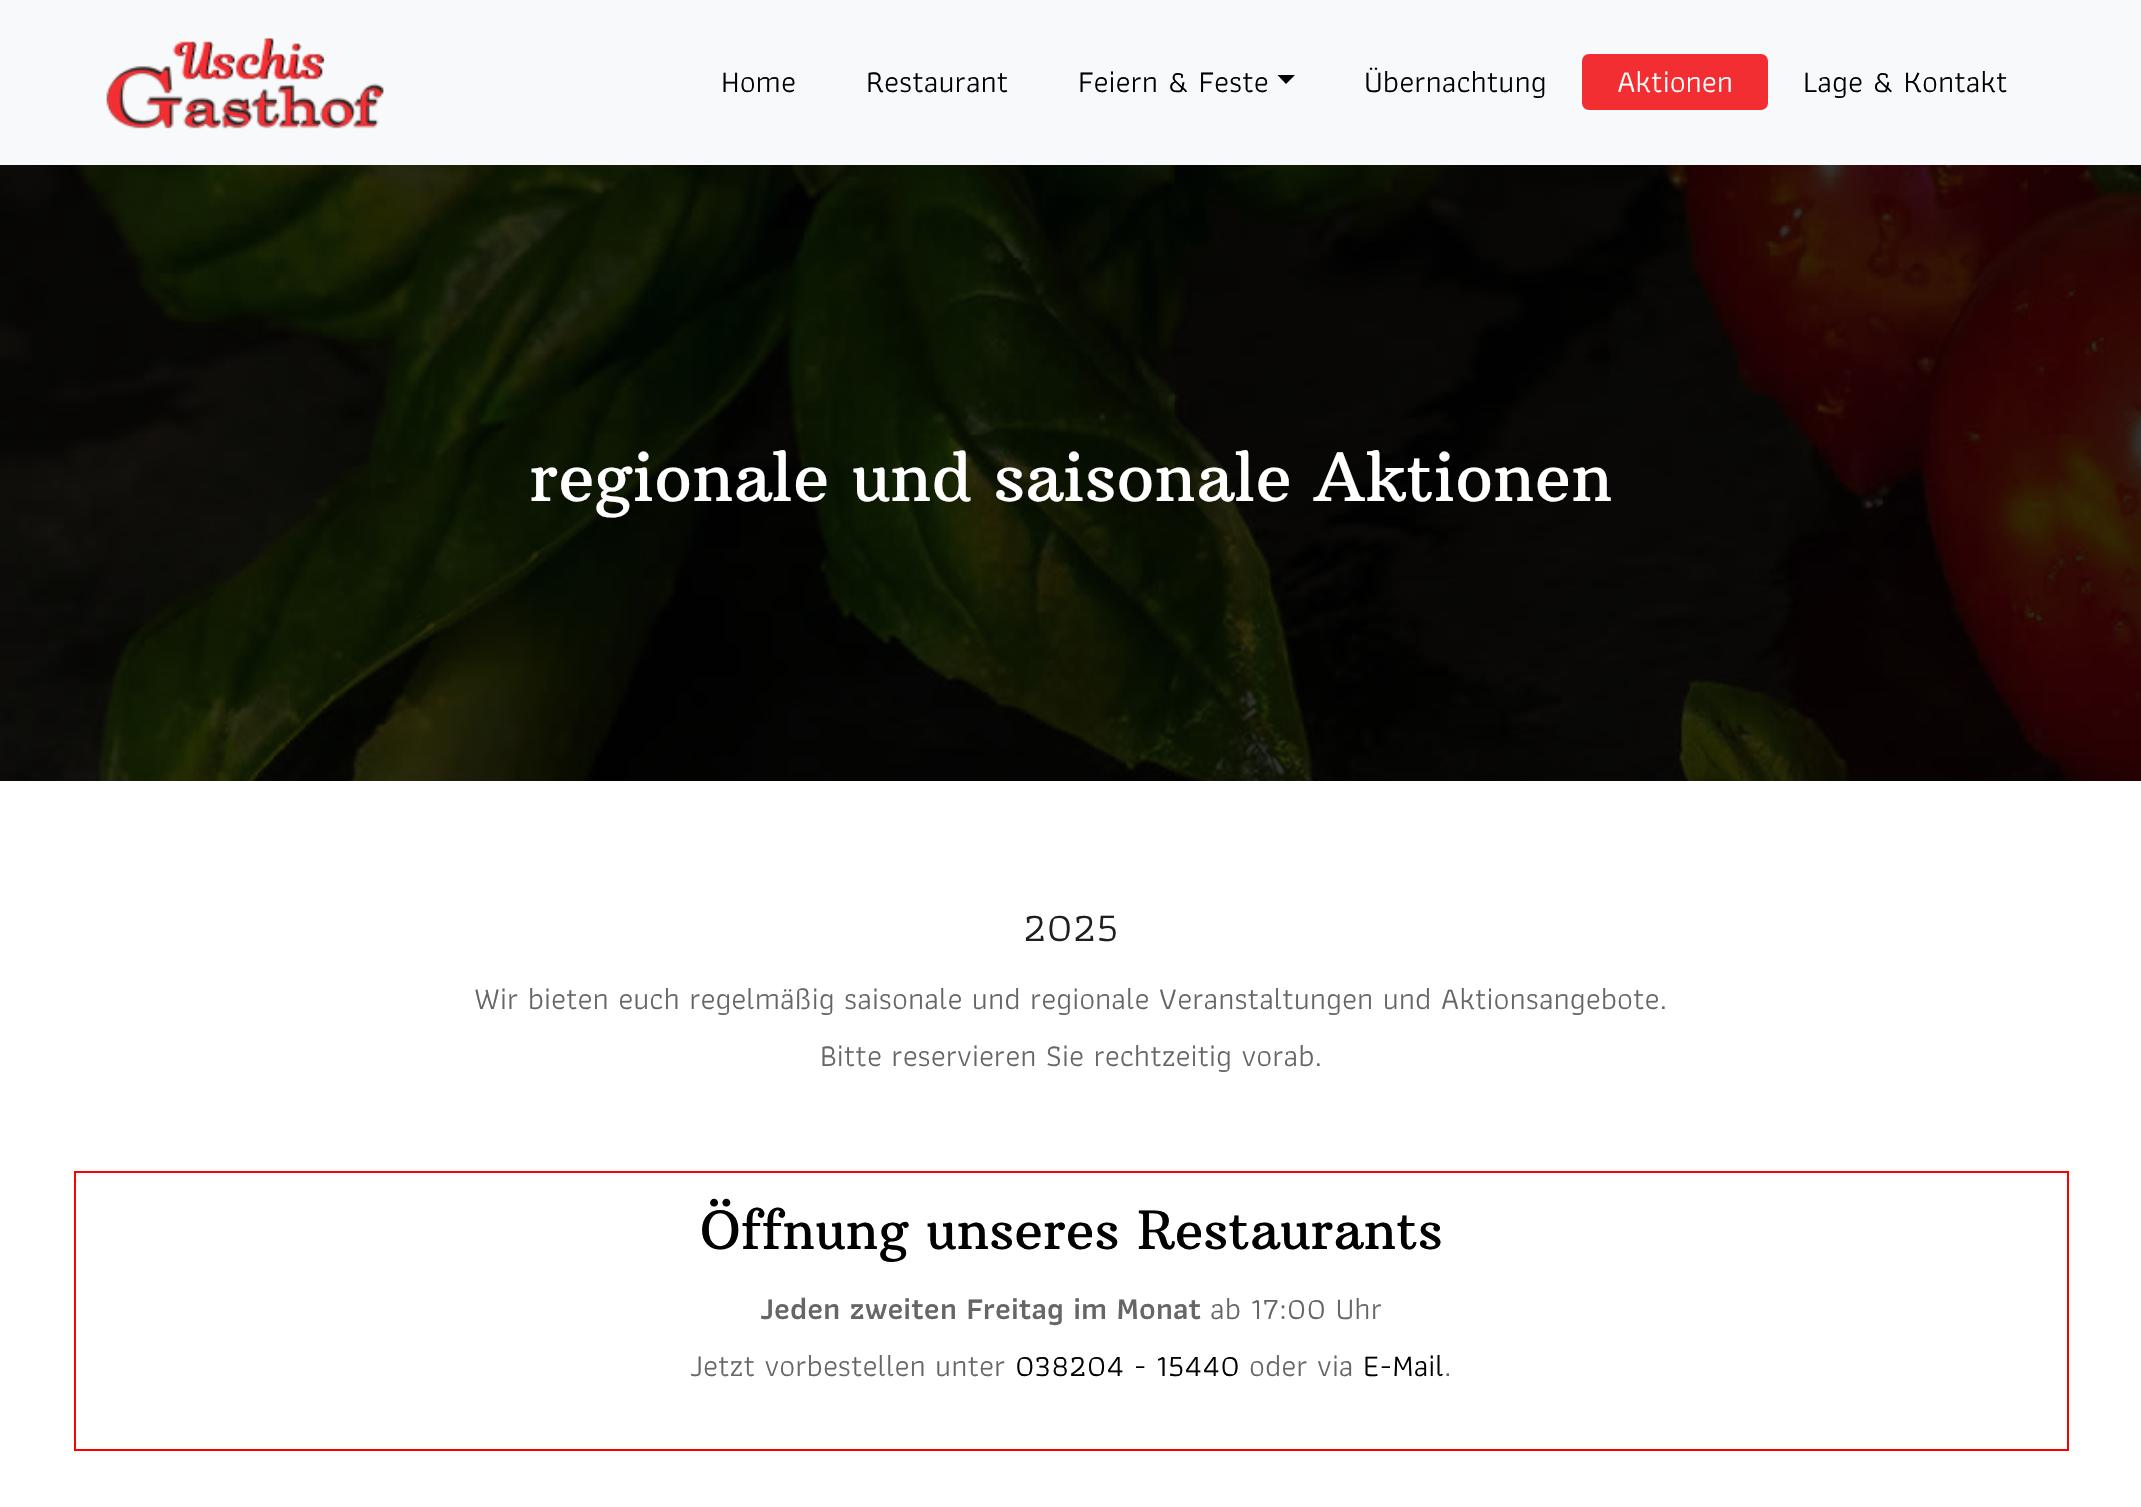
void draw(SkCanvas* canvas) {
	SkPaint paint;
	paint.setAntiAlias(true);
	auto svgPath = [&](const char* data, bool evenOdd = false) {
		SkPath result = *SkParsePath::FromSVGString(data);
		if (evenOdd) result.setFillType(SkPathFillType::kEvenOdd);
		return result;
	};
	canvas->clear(0xffffffff);
	paint.setColor(0xfff8f9fa);
	canvas->drawRect(SkRect::MakeXYWH(0, 0, 2141, 165), paint);
	canvas->drawImageRect(SkImages::DeferredFromEncodedData(SkData::MakeFromFileName("img1.png")), SkRect::MakeXYWH(106, 38, 278, 91), SkSamplingOptions());
	SkFont f1(fontMgr->matchFamilyStyle("Athiti", SkFontStyle::Normal()), 31.5);
	f1.setSubpixel(true);
	paint.setColor(0xff010101);
	canvas->drawString("Home", 721, 92, f1, paint);
	canvas->drawString("Restaurant", 866, 92, f1, paint);
	canvas->drawString("Feiern & Feste", 1078, 92, f1, paint);
	canvas->drawPath(svgPath("M1277.5 75H1295L1286 84Z"), paint);
	canvas->drawString("Übernachtung", 1364, 92, f1, paint);
	paint.setColor(0xfff32e33);
	canvas->drawRoundRect(SkRect::MakeXYWH(1582, 54, 186, 56), 7, 7, paint);
	paint.setColor(0xffffffff);
	canvas->drawString("Aktionen", 1617, 92, f1, paint);
	paint.setColor(0xff010101);
	canvas->drawString("Lage & Kontakt", 1803, 92, f1, paint);
	canvas->drawImageRect(SkImages::DeferredFromEncodedData(SkData::MakeFromFileName("img2.png")), SkRect::MakeXYWH(0, 165, 2141, 616), SkSamplingOptions());
	SkFont f2(fontMgr->matchFamilyStyle("Arbutus Slab", SkFontStyle::Normal()), 66.5);
	f2.setSubpixel(true);
	paint.setColor(0xffffffff);
	canvas->drawString("regionale und saisonale Aktionen", 529, 501, f2, paint);
	SkFont f3(fontMgr->matchFamilyStyle("Athiti", SkFontStyle::Normal()), 42);
	f3.setSubpixel(true);
	paint.setColor(0xff1f1f1f);
	canvas->drawString("2025", 1023, 941, f3, paint);
	paint.setColor(0xff666666);
	canvas->drawString("Wir bieten euch regelmäßig saisonale und regionale Veranstaltungen und Aktionsangebote.", 474, 1009, f1, paint);
	canvas->drawString("Bitte reservieren Sie rechtzeitig vorab.", 820, 1066, f1, paint);
	paint.setStroke(true);
	paint.setStrokeWidth(2);
	paint.setColor(0xffff0000);
	canvas->drawRect(SkRect::MakeXYWH(75, 1172, 1993, 278), paint);
	SkFont f4(fontMgr->matchFamilyStyle("Arbutus Slab", SkFontStyle::Normal()), 52.5);
	f4.setSubpixel(true);
	paint.setStroke(false);
	paint.setColor(0xff010101);
	canvas->drawString("Öffnung unseres Restaurants", 700, 1249, f4, paint);
	SkFont f5(fontMgr->matchFamilyStyle("Athiti", SkFontStyle(600, SkFontStyle::kNormal_Width, SkFontStyle::kUpright_Slant)), 31.5);
	f5.setSubpixel(true);
	paint.setColor(0xff666666);
	canvas->drawString("Jeden zweiten Freitag im Monat", 760, 1319, f5, paint);
	canvas->drawString("ab 17:00 Uhr", 1210, 1319, f1, paint);
	canvas->drawString("Jetzt vorbestellen unter", 690, 1376, f1, paint);
	paint.setColor(0xff010101);
	canvas->drawString("038204 - 15440", 1015, 1376, f1, paint);
	paint.setColor(0xff666666);
	canvas->drawString("oder via", 1249, 1376, f1, paint);
	paint.setColor(0xff010101);
	canvas->drawString("E-Mail", 1363, 1376, f1, paint);
	paint.setColor(0xff666666);
	canvas->drawString(".", 1444, 1376, f1, paint);
}
